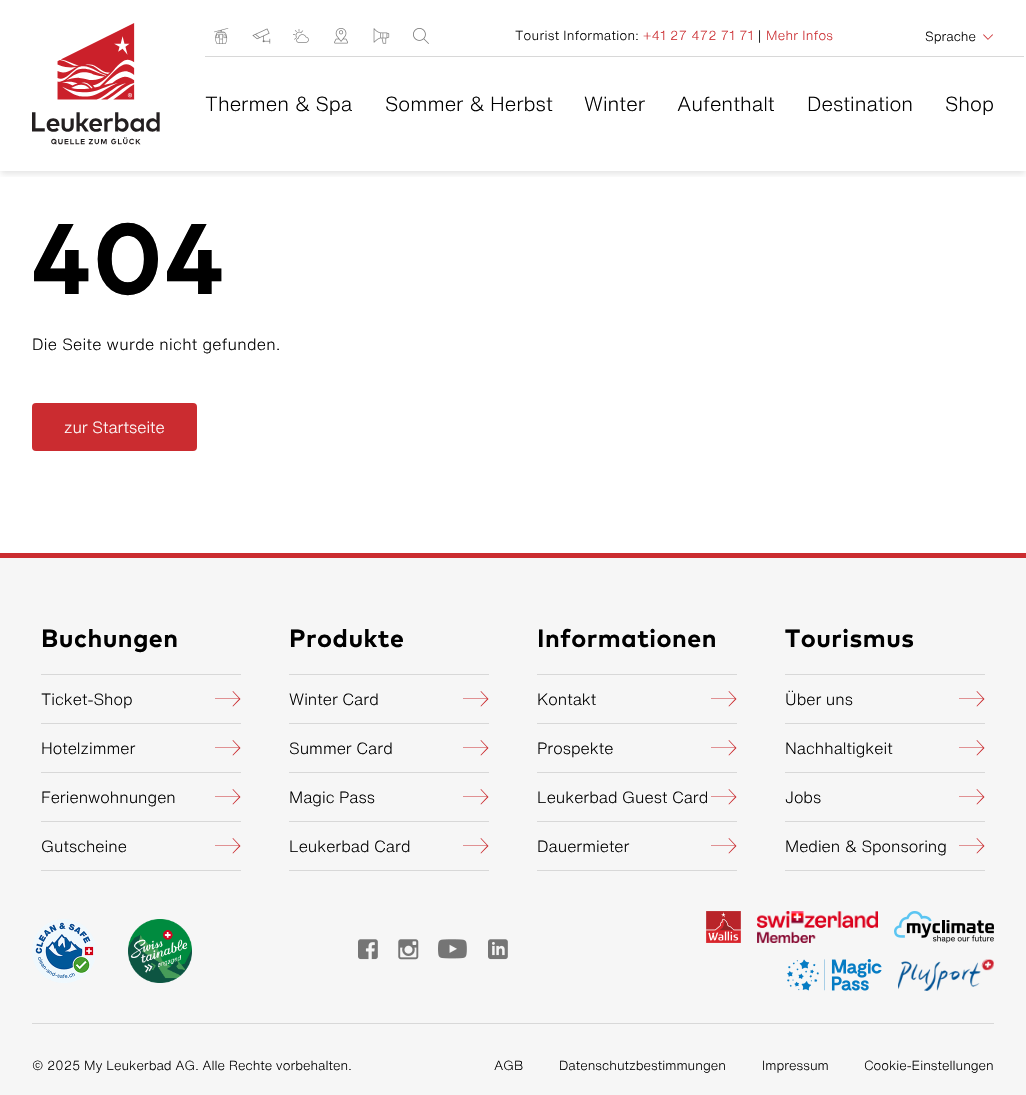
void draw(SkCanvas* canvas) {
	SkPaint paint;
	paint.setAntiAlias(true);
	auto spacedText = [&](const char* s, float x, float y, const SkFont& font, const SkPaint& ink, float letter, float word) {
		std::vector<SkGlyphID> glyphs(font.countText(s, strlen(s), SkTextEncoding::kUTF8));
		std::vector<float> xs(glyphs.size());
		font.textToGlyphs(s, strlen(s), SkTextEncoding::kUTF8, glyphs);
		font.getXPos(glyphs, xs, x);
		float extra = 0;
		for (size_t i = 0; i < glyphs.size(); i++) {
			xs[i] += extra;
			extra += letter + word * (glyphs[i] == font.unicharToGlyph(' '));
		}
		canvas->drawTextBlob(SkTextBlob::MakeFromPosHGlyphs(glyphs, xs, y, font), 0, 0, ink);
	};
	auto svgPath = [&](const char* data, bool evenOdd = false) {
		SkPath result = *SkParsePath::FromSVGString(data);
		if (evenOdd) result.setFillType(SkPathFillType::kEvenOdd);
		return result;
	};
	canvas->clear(0xffffffff);
	canvas->save();
	canvas->clipRect(SkRect::MakeXYWH(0, 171, 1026, 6));
	paint.setColor(0x1a000000);
	paint.setMaskFilter(SkMaskFilter::MakeBlur(kNormal_SkBlurStyle, 3));
	canvas->drawRect(SkRect::MakeXYWH(1, 5, 1024, 169), paint);
	paint.setMaskFilter(nullptr);
	canvas->restore();
	canvas->drawImageRect(SkImages::DeferredFromEncodedData(SkData::MakeFromFileName("img1.png")), SkRect::MakeXYWH(32, 23, 128, 122), SkSamplingOptions());
	paint.setColor(0xffd8d8d8);
	canvas->drawRect(SkRect::MakeXYWH(205, 56, 819, 1), paint);
	canvas->drawImageRect(SkImages::DeferredFromEncodedData(SkData::MakeFromFileName("img2.png")), SkRect::MakeXYWH(214, 28, 15, 16), SkSamplingOptions());
	canvas->drawImageRect(SkImages::DeferredFromEncodedData(SkData::MakeFromFileName("img3.png")), SkRect::MakeXYWH(252, 28, 19, 16), SkSamplingOptions());
	canvas->drawImageRect(SkImages::DeferredFromEncodedData(SkData::MakeFromFileName("img4.png")), SkRect::MakeXYWH(293, 29, 16, 14), SkSamplingOptions());
	canvas->drawImageRect(SkImages::DeferredFromEncodedData(SkData::MakeFromFileName("img5.png")), SkRect::MakeXYWH(334, 28, 14, 16), SkSamplingOptions());
	canvas->drawImageRect(SkImages::DeferredFromEncodedData(SkData::MakeFromFileName("img6.png")), SkRect::MakeXYWH(373, 28, 17, 16), SkSamplingOptions());
	canvas->drawImageRect(SkImages::DeferredFromEncodedData(SkData::MakeFromFileName("img7.png")), SkRect::MakeXYWH(413, 28, 16, 16), SkSamplingOptions());
	SkFont f1(fontMgr->matchFamilyStyle("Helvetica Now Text", SkFontStyle(300, SkFontStyle::kNormal_Width, SkFontStyle::kUpright_Slant)), 13);
	f1.setSubpixel(true);
	paint.setColor(0xff000000);
	spacedText("Tourist Information:", 515, 40, f1, paint, 0.25, 0);
	paint.setColor(0xffcb2c30);
	spacedText("+41 27 472 71 71", 643, 40, f1, paint, 0.25, 0);
	paint.setColor(0xff000000);
	spacedText("|", 758, 40, f1, paint, 0.25, 0);
	paint.setColor(0xffcb2c30);
	spacedText("Mehr Infos", 766, 40, f1, paint, 0.25, 0);
	paint.setColor(0xff000000);
	canvas->drawString("Sprache", 925, 41, f1, paint);
	canvas->drawImageRect(SkImages::DeferredFromEncodedData(SkData::MakeFromFileName("img8.png")), SkRect::MakeXYWH(983, 34, 10, 6), SkSamplingOptions());
	SkFont f2(fontMgr->matchFamilyStyle("Helvetica Now Text", SkFontStyle(300, SkFontStyle::kNormal_Width, SkFontStyle::kUpright_Slant)), 20);
	f2.setSubpixel(true);
	canvas->drawString("Thermen & Spa", 205, 111, f2, paint);
	canvas->drawString("Sommer & Herbst", 385, 111, f2, paint);
	canvas->drawString("Winter", 584, 111, f2, paint);
	canvas->drawString("Aufenthalt", 677, 111, f2, paint);
	canvas->drawString("Destination", 807, 111, f2, paint);
	canvas->drawString("Shop", 945, 111, f2, paint);
	SkFont f3(fontMgr->matchFamilyStyle("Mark", SkFontStyle::Bold()), 100);
	f3.setSubpixel(true);
	spacedText("404", 32, 294, f3, paint, 2, 0);
	SkFont f4(fontMgr->matchFamilyStyle("Helvetica Now Text", SkFontStyle(300, SkFontStyle::kNormal_Width, SkFontStyle::kUpright_Slant)), 16);
	f4.setSubpixel(true);
	spacedText("Die Seite wurde nicht gefunden.", 32, 350, f4, paint, 0.3, 0);
	paint.setColor(0xffcb2c30);
	canvas->drawRoundRect(SkRect::MakeXYWH(32, 403, 165, 48), 4, 4, paint);
	paint.setColor(0xffffffff);
	canvas->drawString("zur Startseite", 64, 433, f4, paint);
	paint.setColor(0xfff6f6f6);
	canvas->drawRect(SkRect::MakeXYWH(0, 558, 1026, 537), paint);
	paint.setColor(0xffcb2c30);
	canvas->drawRect(SkRect::MakeXYWH(0, 553, 1026, 5), paint);
	SkFont f5(fontMgr->matchFamilyStyle("Mark", SkFontStyle::Bold()), 25);
	f5.setSubpixel(true);
	paint.setColor(0xff000000);
	spacedText("Buchungen", 41, 647, f5, paint, 0.5, 0);
	paint.setColor(0xffd8d8d8);
	canvas->drawRect(SkRect::MakeXYWH(41, 870, 200, 1), paint);
	canvas->drawRect(SkRect::MakeXYWH(41, 674, 200, 1), paint);
	paint.setColor(0xff000000);
	canvas->drawString("Ticket-Shop", 41, 705, f4, paint);
	paint.setColor(0xffcb2c30);
	canvas->drawPath(svgPath("M233 706.5L240.5 699L233 691L232.5 691.5L239 698.5H215V699H239L232.5 706Z"), paint);
	paint.setColor(0xffd8d8d8);
	canvas->drawRect(SkRect::MakeXYWH(41, 723, 200, 1), paint);
	paint.setColor(0xff000000);
	canvas->drawString("Hotelzimmer", 41, 754, f4, paint);
	paint.setColor(0xffcb2c30);
	canvas->drawPath(svgPath("M233 755.5L240.5 748L233 740L232.5 740.5L239 747.5H215V748H239L232.5 755Z"), paint);
	paint.setColor(0xffd8d8d8);
	canvas->drawRect(SkRect::MakeXYWH(41, 772, 200, 1), paint);
	paint.setColor(0xff000000);
	canvas->drawString("Ferienwohnungen", 41, 803, f4, paint);
	paint.setColor(0xffcb2c30);
	canvas->drawPath(svgPath("M233 804.5L240.5 797L233 789L232.5 789.5L239 796.5H215V797H239L232.5 804Z"), paint);
	paint.setColor(0xffd8d8d8);
	canvas->drawRect(SkRect::MakeXYWH(41, 821, 200, 1), paint);
	paint.setColor(0xff000000);
	canvas->drawString("Gutscheine", 41, 852, f4, paint);
	paint.setColor(0xffcb2c30);
	canvas->drawPath(svgPath("M233 853.5L240.5 846L233 838L232.5 838.5L239 845.5H215V846H239L232.5 853Z"), paint);
	paint.setColor(0xff000000);
	spacedText("Produkte", 289, 647, f5, paint, 0.5, 0);
	paint.setColor(0xffd8d8d8);
	canvas->drawRect(SkRect::MakeXYWH(289, 870, 200, 1), paint);
	canvas->drawRect(SkRect::MakeXYWH(289, 674, 200, 1), paint);
	paint.setColor(0xff000000);
	canvas->drawString("Winter Card", 289, 705, f4, paint);
	paint.setColor(0xffcb2c30);
	canvas->drawPath(svgPath("M481 706.5L488.5 699L481 691L480.5 691.5L487 698.5H463V699H487L480.5 706Z"), paint);
	paint.setColor(0xffd8d8d8);
	canvas->drawRect(SkRect::MakeXYWH(289, 723, 200, 1), paint);
	paint.setColor(0xff000000);
	canvas->drawString("Summer Card", 289, 754, f4, paint);
	paint.setColor(0xffcb2c30);
	canvas->drawPath(svgPath("M481 755.5L488.5 748L481 740L480.5 740.5L487 747.5H463V748H487L480.5 755Z"), paint);
	paint.setColor(0xffd8d8d8);
	canvas->drawRect(SkRect::MakeXYWH(289, 772, 200, 1), paint);
	paint.setColor(0xff000000);
	canvas->drawString("Magic Pass", 289, 803, f4, paint);
	paint.setColor(0xffcb2c30);
	canvas->drawPath(svgPath("M481 804.5L488.5 797L481 789L480.5 789.5L487 796.5H463V797H487L480.5 804Z"), paint);
	paint.setColor(0xffd8d8d8);
	canvas->drawRect(SkRect::MakeXYWH(289, 821, 200, 1), paint);
	paint.setColor(0xff000000);
	canvas->drawString("Leukerbad Card", 289, 852, f4, paint);
	paint.setColor(0xffcb2c30);
	canvas->drawPath(svgPath("M481 853.5L488.5 846L481 838L480.5 838.5L487 845.5H463V846H487L480.5 853Z"), paint);
	paint.setColor(0xff000000);
	spacedText("Informationen", 537, 647, f5, paint, 0.5, 0);
	paint.setColor(0xffd8d8d8);
	canvas->drawRect(SkRect::MakeXYWH(537, 870, 200, 1), paint);
	canvas->drawRect(SkRect::MakeXYWH(537, 674, 200, 1), paint);
	paint.setColor(0xff000000);
	canvas->drawString("Kontakt", 537, 705, f4, paint);
	paint.setColor(0xffcb2c30);
	canvas->drawPath(svgPath("M729 706.5L736.5 699L729 691L728.5 691.5L735 698.5H711V699H735L728.5 706Z"), paint);
	paint.setColor(0xffd8d8d8);
	canvas->drawRect(SkRect::MakeXYWH(537, 723, 200, 1), paint);
	paint.setColor(0xff000000);
	canvas->drawString("Prospekte", 537, 754, f4, paint);
	paint.setColor(0xffcb2c30);
	canvas->drawPath(svgPath("M729 755.5L736.5 748L729 740L728.5 740.5L735 747.5H711V748H735L728.5 755Z"), paint);
	paint.setColor(0xffd8d8d8);
	canvas->drawRect(SkRect::MakeXYWH(537, 772, 200, 1), paint);
	paint.setColor(0xff000000);
	canvas->drawString("Leukerbad Guest Card", 537, 803, f4, paint);
	paint.setColor(0xffcb2c30);
	canvas->drawPath(svgPath("M729 804.5L736.5 797L729 789L728.5 789.5L735 796.5H711V797H735L728.5 804Z"), paint);
	paint.setColor(0xffd8d8d8);
	canvas->drawRect(SkRect::MakeXYWH(537, 821, 200, 1), paint);
	paint.setColor(0xff000000);
	canvas->drawString("Dauermieter", 537, 852, f4, paint);
	paint.setColor(0xffcb2c30);
	canvas->drawPath(svgPath("M729 853.5L736.5 846L729 838L728.5 838.5L735 845.5H711V846H735L728.5 853Z"), paint);
	paint.setColor(0xff000000);
	spacedText("Tourismus", 785, 647, f5, paint, 0.5, 0);
	paint.setColor(0xffd8d8d8);
	canvas->drawRect(SkRect::MakeXYWH(785, 870, 200, 1), paint);
	canvas->drawRect(SkRect::MakeXYWH(785, 674, 200, 1), paint);
	paint.setColor(0xff000000);
	canvas->drawString("Über uns", 785, 705, f4, paint);
	paint.setColor(0xffcb2c30);
	canvas->drawPath(svgPath("M977 706.5L984.5 699L977 691L976.5 691.5L983 698.5H959V699H983L976.5 706Z"), paint);
	paint.setColor(0xffd8d8d8);
	canvas->drawRect(SkRect::MakeXYWH(785, 723, 200, 1), paint);
	paint.setColor(0xff000000);
	canvas->drawString("Nachhaltigkeit", 785, 754, f4, paint);
	paint.setColor(0xffcb2c30);
	canvas->drawPath(svgPath("M977 755.5L984.5 748L977 740L976.5 740.5L983 747.5H959V748H983L976.5 755Z"), paint);
	paint.setColor(0xffd8d8d8);
	canvas->drawRect(SkRect::MakeXYWH(785, 772, 200, 1), paint);
	paint.setColor(0xff000000);
	canvas->drawString("Jobs", 785, 803, f4, paint);
	paint.setColor(0xffcb2c30);
	canvas->drawPath(svgPath("M977 804.5L984.5 797L977 789L976.5 789.5L983 796.5H959V797H983L976.5 804Z"), paint);
	paint.setColor(0xffd8d8d8);
	canvas->drawRect(SkRect::MakeXYWH(785, 821, 200, 1), paint);
	paint.setColor(0xff000000);
	canvas->drawString("Medien & Sponsoring", 785, 852, f4, paint);
	paint.setColor(0xffcb2c30);
	canvas->drawPath(svgPath("M977 853.5L984.5 846L977 838L976.5 838.5L983 845.5H959V846H983L976.5 853Z"), paint);
	canvas->drawImageRect(SkImages::DeferredFromEncodedData(SkData::MakeFromFileName("img9.png")), SkRect::MakeXYWH(32, 919, 64, 64), SkSamplingOptions());
	canvas->drawImageRect(SkImages::DeferredFromEncodedData(SkData::MakeFromFileName("img10.png")), SkRect::MakeXYWH(128, 919, 64, 64), SkSamplingOptions());
	canvas->drawImageRect(SkImages::DeferredFromEncodedData(SkData::MakeFromFileName("img11.png")), SkRect::MakeXYWH(358, 939, 20, 21), SkSamplingOptions());
	canvas->drawImageRect(SkImages::DeferredFromEncodedData(SkData::MakeFromFileName("img12.png")), SkRect::MakeXYWH(398, 939, 21, 21), SkSamplingOptions());
	canvas->drawImageRect(SkImages::DeferredFromEncodedData(SkData::MakeFromFileName("img13.png")), SkRect::MakeXYWH(438, 939, 29, 20), SkSamplingOptions());
	canvas->drawImageRect(SkImages::DeferredFromEncodedData(SkData::MakeFromFileName("img14.png")), SkRect::MakeXYWH(488, 939, 20, 21), SkSamplingOptions());
	canvas->drawImageRect(SkImages::DeferredFromEncodedData(SkData::MakeFromFileName("img15.png")), SkRect::MakeXYWH(706, 911, 35, 32), SkSamplingOptions());
	canvas->drawImageRect(SkImages::DeferredFromEncodedData(SkData::MakeFromFileName("img16.png")), SkRect::MakeXYWH(757, 911, 121, 32), SkSamplingOptions());
	canvas->drawImageRect(SkImages::DeferredFromEncodedData(SkData::MakeFromFileName("img17.png")), SkRect::MakeXYWH(894, 911, 100, 32), SkSamplingOptions());
	canvas->drawImageRect(SkImages::DeferredFromEncodedData(SkData::MakeFromFileName("img18.png")), SkRect::MakeXYWH(787, 959, 95, 32), SkSamplingOptions());
	canvas->drawImageRect(SkImages::DeferredFromEncodedData(SkData::MakeFromFileName("img19.png")), SkRect::MakeXYWH(898, 959, 96, 32), SkSamplingOptions());
	paint.setColor(0xffd8d8d8);
	canvas->drawRect(SkRect::MakeXYWH(32, 1023, 962, 1), paint);
	paint.setColor(0xff000000);
	canvas->drawString("© 2025 My Leukerbad AG. Alle Rechte vorbehalten.", 32, 1070, f1, paint);
	canvas->drawString("AGB", 494, 1070, f1, paint);
	canvas->drawString("Datenschutzbestimmungen", 559, 1070, f1, paint);
	canvas->drawString("Impressum", 762, 1070, f1, paint);
	canvas->drawString("Cookie-Einstellungen", 864, 1070, f1, paint);
}
